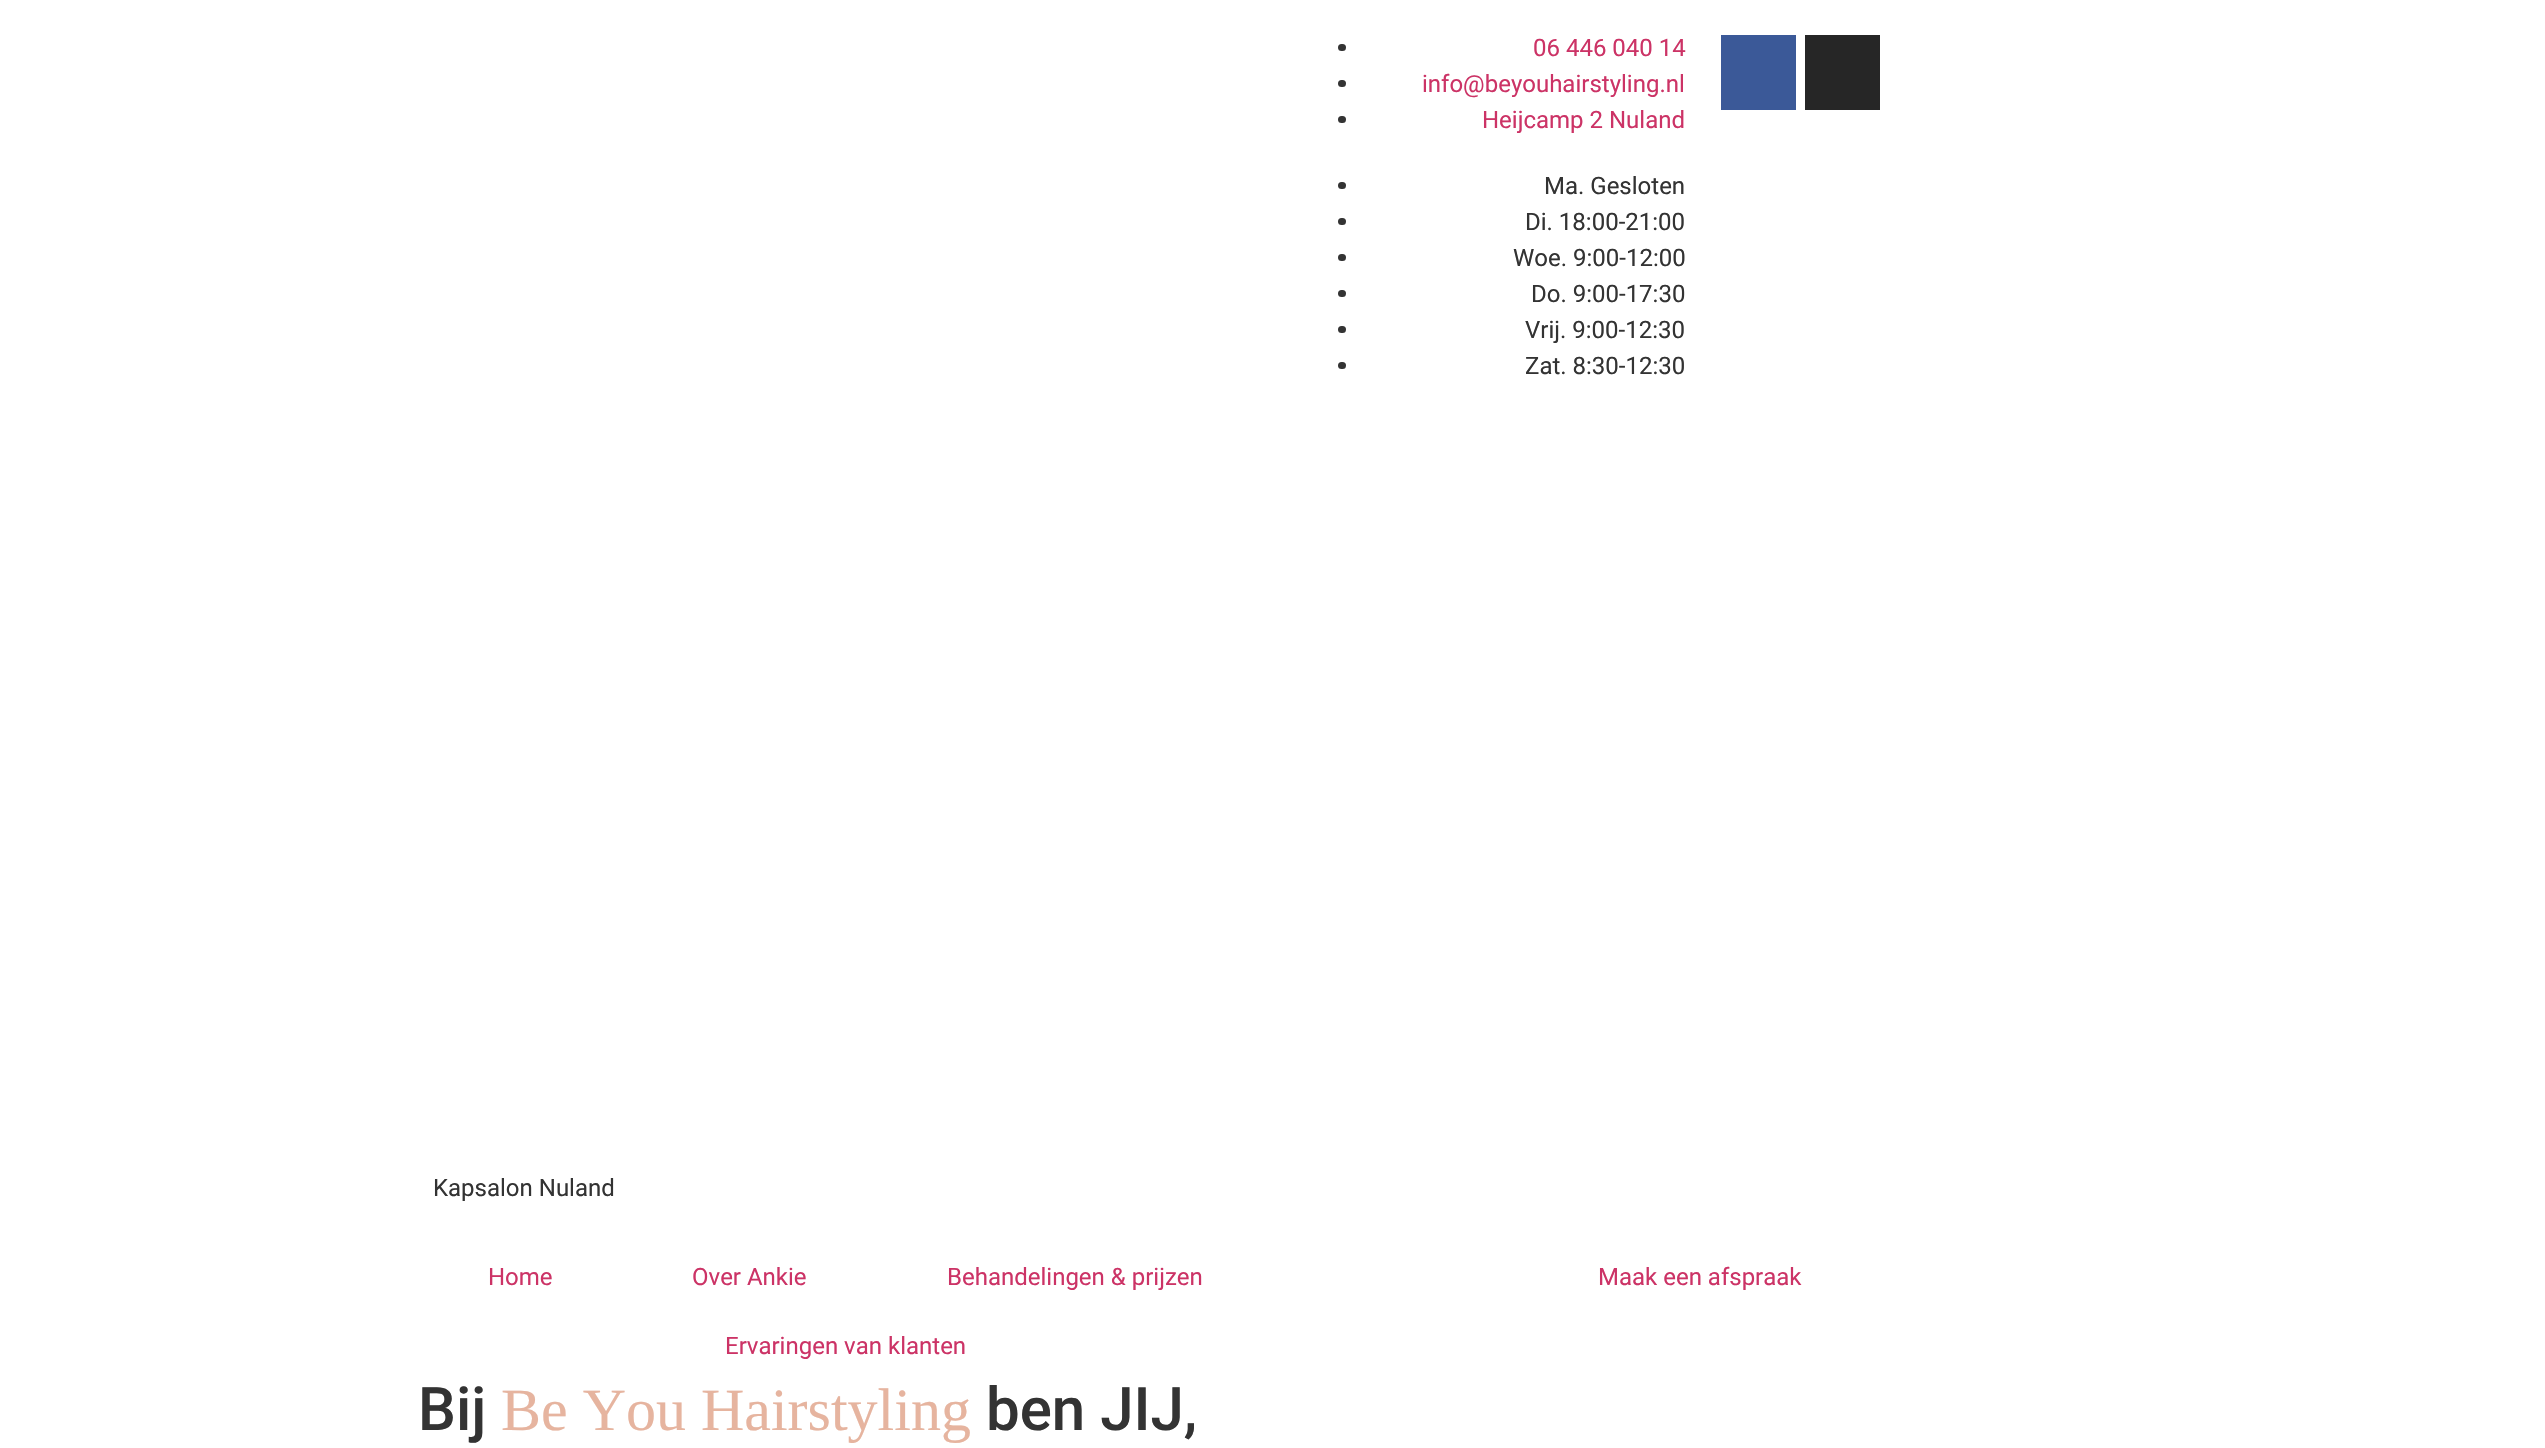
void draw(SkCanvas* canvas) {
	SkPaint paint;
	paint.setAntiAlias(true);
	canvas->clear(0xffffffff);
	paint.setColor(0xff333333);
	canvas->drawRoundRect(SkRect::MakeXYWH(1338, 44, 8, 7), 3.5, 3.5, paint);
	SkFont f1(fontMgr->matchFamilyStyle("Roboto", SkFontStyle::Normal()), 24);
	f1.setSubpixel(true);
	paint.setColor(0xffcc3366);
	canvas->drawString("06 446 040 14", 1533, 56, f1, paint);
	paint.setColor(0xff333333);
	canvas->drawRoundRect(SkRect::MakeXYWH(1338, 80, 8, 7), 3.5, 3.5, paint);
	paint.setColor(0xffcc3366);
	canvas->drawString("info@beyouhairstyling.nl", 1422, 92, f1, paint);
	paint.setColor(0xff333333);
	canvas->drawRoundRect(SkRect::MakeXYWH(1338, 116, 8, 7), 3.5, 3.5, paint);
	paint.setColor(0xffcc3366);
	canvas->drawString("Heijcamp 2 Nuland", 1482, 128, f1, paint);
	paint.setColor(0xff333333);
	canvas->drawRoundRect(SkRect::MakeXYWH(1338, 182, 8, 7), 3.5, 3.5, paint);
	canvas->drawString("Ma. Gesloten", 1544, 194, f1, paint);
	canvas->drawRoundRect(SkRect::MakeXYWH(1338, 218, 8, 7), 3.5, 3.5, paint);
	canvas->drawString("Di. 18:00-21:00", 1525, 230, f1, paint);
	canvas->drawRoundRect(SkRect::MakeXYWH(1338, 254, 8, 7), 3.5, 3.5, paint);
	canvas->drawString("Woe. 9:00-12:00", 1513, 266, f1, paint);
	canvas->drawRoundRect(SkRect::MakeXYWH(1338, 290, 8, 7), 3.5, 3.5, paint);
	canvas->drawString("Do. 9:00-17:30", 1531, 302, f1, paint);
	canvas->drawRoundRect(SkRect::MakeXYWH(1338, 326, 8, 7), 3.5, 3.5, paint);
	canvas->drawString("Vrij. 9:00-12:30", 1525, 338, f1, paint);
	canvas->drawRoundRect(SkRect::MakeXYWH(1338, 362, 8, 7), 3.5, 3.5, paint);
	canvas->drawString("Zat. 8:30-12:30", 1525, 374, f1, paint);
	paint.setColor(0xff3b5998);
	canvas->drawRect(SkRect::MakeXYWH(1721, 35, 75, 75), paint);
	paint.setColor(0xff262626);
	canvas->drawRect(SkRect::MakeXYWH(1805, 35, 75, 75), paint);
	paint.setColor(0xff333333);
	canvas->drawString("Kapsalon Nuland", 433, 1196, f1, paint);
	paint.setColor(0xffcc3366);
	canvas->drawString("Home", 488, 1285, f1, paint);
	canvas->drawString("Over Ankie", 692, 1285, f1, paint);
	canvas->drawString("Behandelingen & prijzen", 947, 1285, f1, paint);
	canvas->drawString("Ervaringen van klanten", 725, 1354, f1, paint);
	canvas->drawString("Maak een afspraak", 1598, 1285, f1, paint);
	SkFont f2(fontMgr->matchFamilyStyle("Roboto", SkFontStyle(500, SkFontStyle::kNormal_Width, SkFontStyle::kUpright_Slant)), 60);
	f2.setSubpixel(true);
	paint.setColor(0xff333333);
	canvas->drawString("Bij", 418, 1430, f2, paint);
	SkFont f3(fontMgr->matchFamilyStyle("Liberation Serif", SkFontStyle::Normal()), 60);
	f3.setSubpixel(true);
	paint.setColor(0xffe6b49f);
	canvas->drawString("Be You Hairstyling", 501, 1430, f3, paint);
	paint.setColor(0xff333333);
	canvas->drawString("ben JIJ,", 986, 1430, f2, paint);
}
